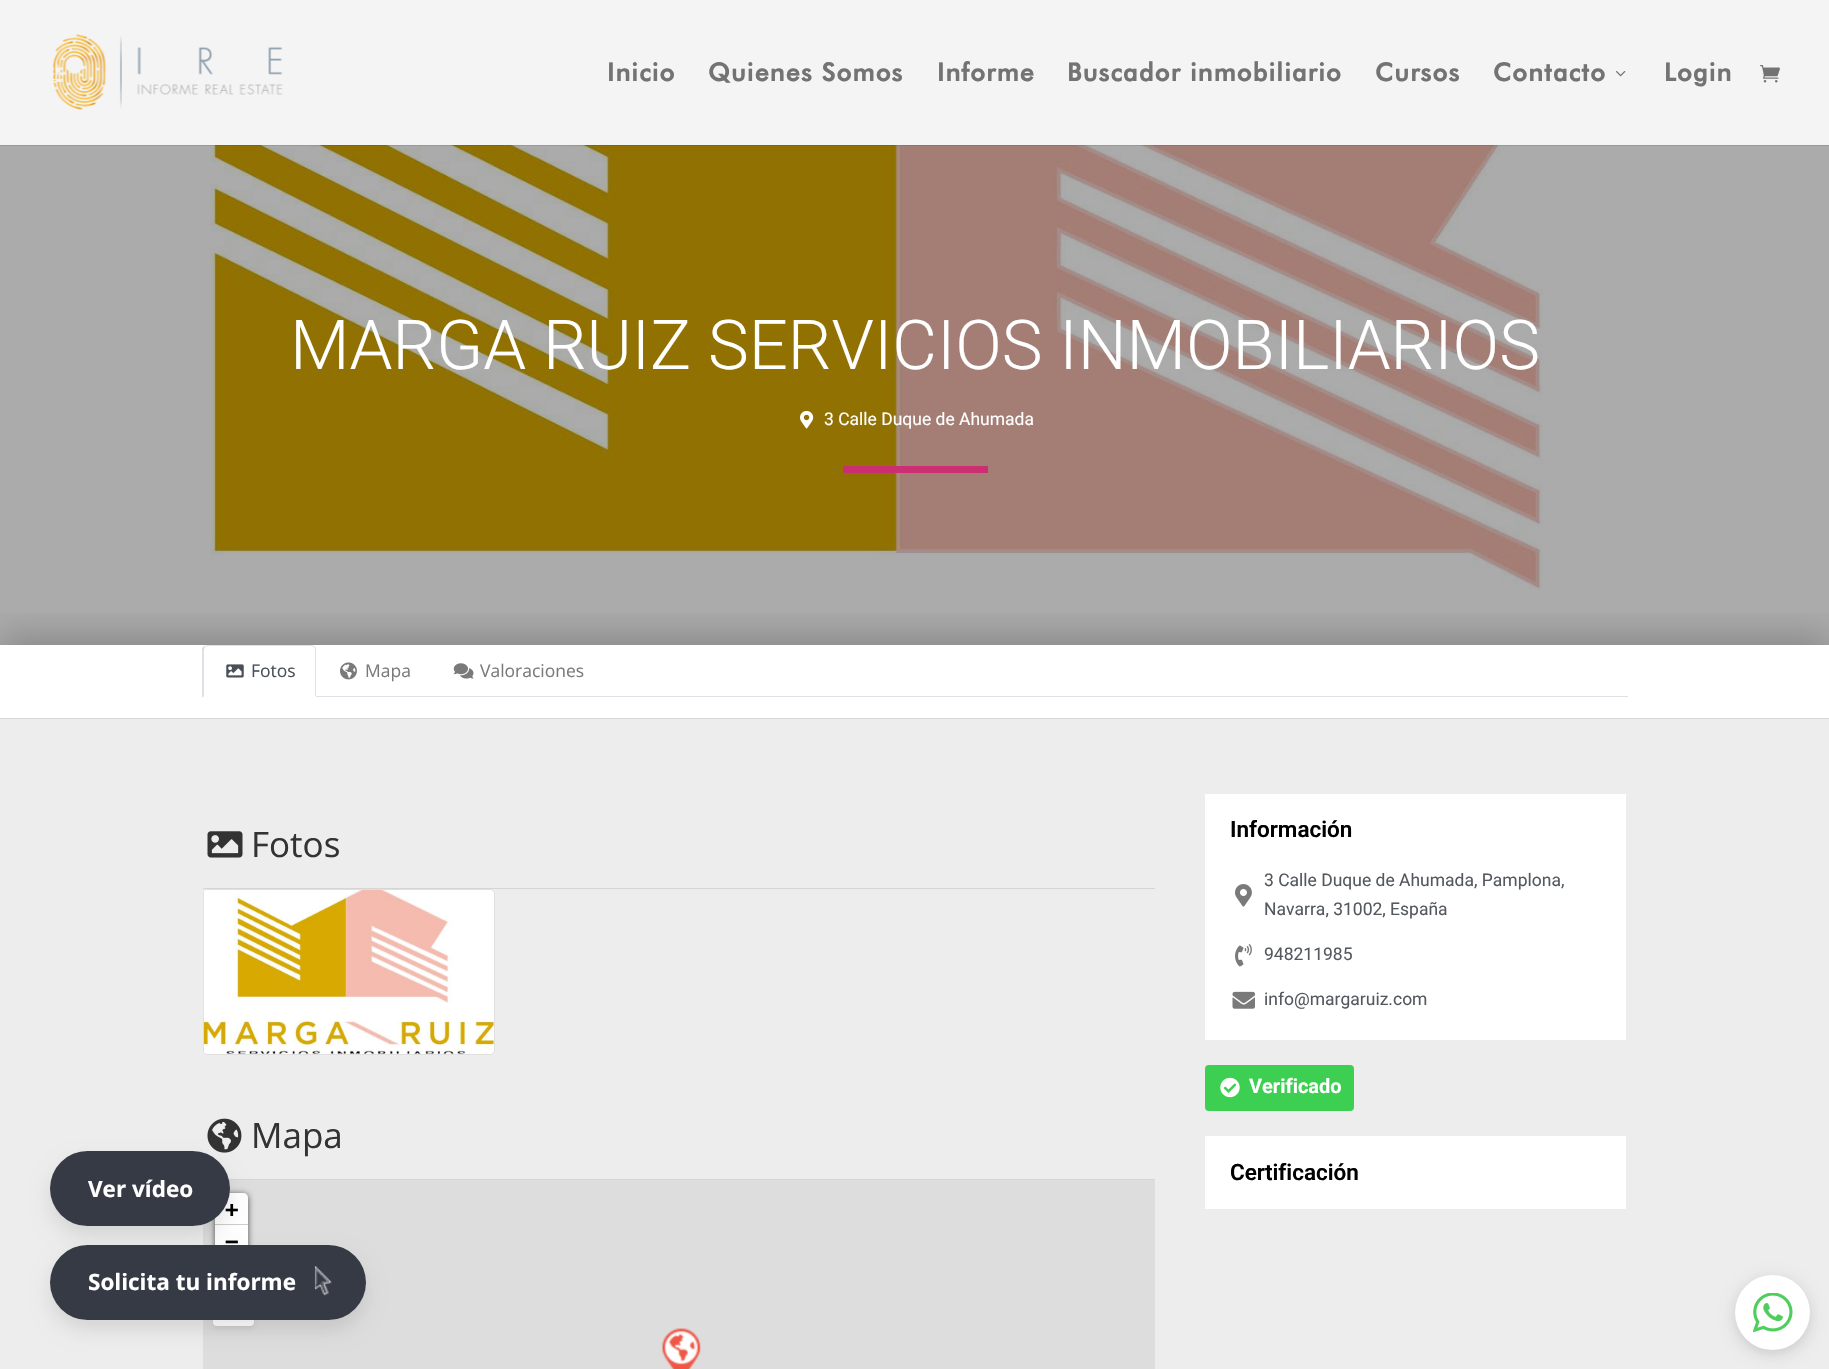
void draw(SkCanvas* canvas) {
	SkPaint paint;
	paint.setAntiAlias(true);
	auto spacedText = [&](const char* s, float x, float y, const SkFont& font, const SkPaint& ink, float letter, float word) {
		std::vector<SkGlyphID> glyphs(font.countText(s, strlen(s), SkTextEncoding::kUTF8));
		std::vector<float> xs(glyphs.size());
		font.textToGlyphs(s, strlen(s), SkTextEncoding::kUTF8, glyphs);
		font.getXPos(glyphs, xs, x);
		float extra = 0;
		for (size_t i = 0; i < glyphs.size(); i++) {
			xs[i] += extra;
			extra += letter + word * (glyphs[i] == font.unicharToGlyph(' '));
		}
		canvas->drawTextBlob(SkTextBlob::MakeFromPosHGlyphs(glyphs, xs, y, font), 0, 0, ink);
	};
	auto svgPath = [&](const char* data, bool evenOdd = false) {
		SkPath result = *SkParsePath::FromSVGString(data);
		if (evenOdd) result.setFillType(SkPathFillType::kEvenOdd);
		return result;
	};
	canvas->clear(0xffffffff);
	paint.setColor(0xffababab);
	canvas->drawRect(SkRect::MakeXYWH(0, 145, 1829, 500), paint);
	canvas->drawImageRect(SkImages::DeferredFromEncodedData(SkData::MakeFromFileName("img4.png")), SkRect::MakeXYWH(210, 145, 1333, 445), SkSamplingOptions());
	canvas->save();
	canvas->clipRect(SkRect::MakeXYWH(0, 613, 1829, 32));
	paint.setColor(0x33000000);
	paint.setMaskFilter(SkMaskFilter::MakeBlur(kNormal_SkBlurStyle, 17.5));
	canvas->drawRect(SkRect::MakeXYWH(0, 635, 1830, 74), paint);
	paint.setMaskFilter(nullptr);
	canvas->restore();
	paint.setColor(0xffededed);
	canvas->drawRect(SkRect::MakeXYWH(0, 719, 1829, 650), paint);
	canvas->drawImageRect(SkImages::DeferredFromEncodedData(SkData::MakeFromFileName("img11.png")), SkRect::MakeXYWH(207, 1118, 35, 35), SkSamplingOptions());
	paint.setColor(0xffd5d5d5);
	canvas->drawRect(SkRect::MakeXYWH(228, 1179, 927, 1), paint);
	paint.setColor(0xffdddddd);
	canvas->drawRect(SkRect::MakeXYWH(203, 1180, 952, 189), paint);
	paint.setColor(0xa6000000);
	paint.setMaskFilter(SkMaskFilter::MakeBlur(kNormal_SkBlurStyle, 3));
	canvas->drawRoundRect(SkRect::MakeXYWH(215, 1194, 33, 65), 5, 5, paint);
	paint.setMaskFilter(nullptr);
	paint.setColor(0xffffffff);
	canvas->drawPath(svgPath("M220 1193H243C246 1193 248 1195 248 1198V1225H215V1198C215 1195 217 1193 220 1193Z"), paint);
	paint.setColor(0xffcccccc);
	canvas->drawRect(SkRect::MakeXYWH(215, 1224, 33, 1), paint);
	paint.setColor(0xffffffff);
	canvas->drawRect(SkRect::MakeXYWH(215, 1225, 33, 20), paint);
	paint.setColor(0x12000000);
	paint.setMaskFilter(SkMaskFilter::MakeBlur(kNormal_SkBlurStyle, 2.5));
	canvas->drawRoundRect(SkRect::MakeXYWH(213, 1289, 41, 40), 4, 4, paint);
	paint.setMaskFilter(nullptr);
	paint.setColor(0xffffffff);
	canvas->drawRoundRect(SkRect::MakeXYWH(213, 1286, 41, 40), 4, 4, paint);
	paint.setColor(0x1a000000);
	paint.setMaskFilter(SkMaskFilter::MakeBlur(kNormal_SkBlurStyle, 9.5));
	canvas->drawRoundRect(SkRect::MakeXYWH(50, 1255, 316, 75), 37.5, 37.5, paint);
	paint.setMaskFilter(nullptr);
	paint.setColor(0xff363a44);
	canvas->drawRoundRect(SkRect::MakeXYWH(50, 1245, 316, 75), 37.5, 37.5, paint);
	paint.setColor(0x1a000000);
	paint.setMaskFilter(SkMaskFilter::MakeBlur(kNormal_SkBlurStyle, 9.5));
	canvas->drawRoundRect(SkRect::MakeXYWH(50, 1161, 180, 75), 37.5, 37.5, paint);
	paint.setMaskFilter(nullptr);
	SkFont f1(fontMgr->matchFamilyStyle("DejaVu Sans Mono", SkFontStyle::Bold()), 22.5);
	f1.setSubpixel(true);
	paint.setColor(0xff000000);
	canvas->drawString("+", 225, 1217, f1, paint);
	paint.setColor(0xff363a44);
	canvas->drawRoundRect(SkRect::MakeXYWH(50, 1151, 180, 75), 37.5, 37.5, paint);
	SkFont f2(fontMgr->matchFamilyStyle("Open Sans", SkFontStyle::Bold()), 22.5);
	f2.setSubpixel(true);
	paint.setColor(0xffffffff);
	canvas->drawString("Ver vídeo", 88, 1197, f2, paint);
	paint.setColor(0x1a000000);
	canvas->drawRect(SkRect::MakeXYWH(0, 145, 1829, 1), paint);
	paint.setColor(0xfff4f4f4);
	canvas->drawRect(SkRect::MakeXYWH(0, 0, 1829, 145), paint);
	canvas->drawImageRect(SkImages::DeferredFromEncodedData(SkData::MakeFromFileName("img1.png")), SkRect::MakeXYWH(52, 34, 231, 76), SkSamplingOptions());
	SkFont f3(fontMgr->matchFamilyStyle("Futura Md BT", SkFontStyle::Bold()), 25);
	f3.setSubpixel(true);
	paint.setColor(0xff737373);
	spacedText("Inicio", 607, 81, f3, paint, 1.25, 0);
	spacedText("Quienes Somos", 708, 81, f3, paint, 1.25, 0);
	spacedText("Informe", 937, 81, f3, paint, 1.25, 0);
	spacedText("Buscador inmobiliario", 1067, 81, f3, paint, 1.25, 0);
	spacedText("Cursos", 1375, 81, f3, paint, 1.25, 0);
	spacedText("Contacto", 1493, 81, f3, paint, 1.25, 0);
	canvas->drawImageRect(SkImages::DeferredFromEncodedData(SkData::MakeFromFileName("img2.png")), SkRect::MakeXYWH(1616, 71, 10, 6), SkSamplingOptions());
	spacedText("Login", 1664, 81, f3, paint, 1.25, 0);
	canvas->drawImageRect(SkImages::DeferredFromEncodedData(SkData::MakeFromFileName("img3.png")), SkRect::MakeXYWH(1760, 65, 20, 18), SkSamplingOptions());
	SkFont f4(fontMgr->matchFamilyStyle("Roboto", SkFontStyle(300, SkFontStyle::kNormal_Width, SkFontStyle::kUpright_Slant)), 68.75);
	f4.setSubpixel(true);
	paint.setColor(0xffffffff);
	canvas->drawString("MARGA RUIZ SERVICIOS INMOBILIARIOS", 290, 369, f4, paint);
	canvas->drawImageRect(SkImages::DeferredFromEncodedData(SkData::MakeFromFileName("img5.png")), SkRect::MakeXYWH(800, 410, 14, 19), SkSamplingOptions());
	SkFont f5(fontMgr->matchFamilyStyle("Roboto", SkFontStyle::Normal()), 17.5);
	f5.setSubpixel(true);
	canvas->drawString("3 Calle Duque de Ahumada", 824, 425, f5, paint);
	paint.setColor(0xffcc2e72);
	canvas->drawRect(SkRect::MakeXYWH(843, 466, 145, 7), paint);
	paint.setColor(0xffd6d6d6);
	canvas->drawRect(SkRect::MakeXYWH(0, 718, 1829, 1), paint);
	paint.setColor(0xffdee2e6);
	canvas->drawRect(SkRect::MakeXYWH(316, 696, 1312, 1), paint);
	canvas->drawPath(svgPath("M208 645C206 645 205 646 204 646L205 647C206 646 207 646 208 646H311L314 647H315C314 646 313 645 311 645Z"), paint);
	canvas->drawPath(svgPath("M315 647C316 647 316 649 316 650V697L315 696V650C315 649 315 648 314 647Z"), paint);
	paint.setColor(0xffffffff);
	canvas->drawPath(svgPath("M316 697L202 698L204 696H315Z"), paint);
	paint.setColor(0xffdee2e6);
	canvas->drawPath(svgPath("M202 698V648L204 646L205 647L204 650V696Z"), paint);
	canvas->drawImageRect(SkImages::DeferredFromEncodedData(SkData::MakeFromFileName("img6.png")), SkRect::MakeXYWH(226, 664, 18, 14), SkSamplingOptions());
	SkFont f6(fontMgr->matchFamilyStyle("Open Sans", SkFontStyle::Normal()), 17.5);
	f6.setSubpixel(true);
	paint.setColor(0xff495057);
	canvas->drawString("Fotos", 251, 677, f6, paint);
	canvas->drawImageRect(SkImages::DeferredFromEncodedData(SkData::MakeFromFileName("img7.png")), SkRect::MakeXYWH(340, 662, 17, 18), SkSamplingOptions());
	paint.setColor(0xff7a7a7a);
	canvas->drawString("Mapa", 365, 677, f6, paint);
	canvas->drawImageRect(SkImages::DeferredFromEncodedData(SkData::MakeFromFileName("img8.png")), SkRect::MakeXYWH(453, 663, 21, 16), SkSamplingOptions());
	canvas->drawString("Valoraciones", 480, 677, f6, paint);
	canvas->drawImageRect(SkImages::DeferredFromEncodedData(SkData::MakeFromFileName("img9.png")), SkRect::MakeXYWH(207, 831, 36, 27), SkSamplingOptions());
	SkFont f7(fontMgr->matchFamilyStyle("Open Sans", SkFontStyle::Normal()), 35);
	f7.setSubpixel(true);
	paint.setColor(0xff333333);
	canvas->drawString("Fotos", 251, 857, f7, paint);
	paint.setColor(0xffd5d5d5);
	canvas->drawRect(SkRect::MakeXYWH(203, 888, 952, 1), paint);
	paint.setColor(0xffffffff);
	canvas->drawRoundRect(SkRect::MakeXYWH(203, 889, 292, 166), 5, 5, paint);
	paint.setStroke(true);
	paint.setStrokeWidth(1);
	paint.setColor(0x1f000000);
	canvas->drawRoundRect(SkRect::MakeXYWH(203.5, 889.5, 291, 165), 4.5, 4.5, paint);
	canvas->drawImageRect(SkImages::DeferredFromEncodedData(SkData::MakeFromFileName("img10.png")), SkRect::MakeXYWH(203, 890, 291, 164), SkSamplingOptions());
	paint.setStroke(false);
	paint.setColor(0xff333333);
	canvas->drawString("Mapa", 251, 1148, f7, paint);
	paint.setColor(0xff000000);
	canvas->drawString("−", 225, 1249, f1, paint);
	canvas->drawImageRect(SkImages::DeferredFromEncodedData(SkData::MakeFromFileName("img12.png")), SkRect::MakeXYWH(661, 1328, 40, 41), SkSamplingOptions());
	paint.setColor(0xffffffff);
	canvas->drawRect(SkRect::MakeXYWH(1205, 794, 421, 246), paint);
	SkFont f8(fontMgr->matchFamilyStyle("Roboto", SkFontStyle(600, SkFontStyle::kNormal_Width, SkFontStyle::kUpright_Slant)), 22.5);
	f8.setSubpixel(true);
	paint.setColor(0xff000000);
	canvas->drawString("Información", 1230, 837, f8, paint);
	canvas->drawImageRect(SkImages::DeferredFromEncodedData(SkData::MakeFromFileName("img13.png")), SkRect::MakeXYWH(1235, 884, 17, 23), SkSamplingOptions());
	paint.setColor(0xff54595f);
	canvas->drawString("3 Calle Duque de Ahumada, Pamplona,", 1264, 886, f5, paint);
	canvas->drawString("Navarra, 31002, España", 1264, 915, f5, paint);
	canvas->drawImageRect(SkImages::DeferredFromEncodedData(SkData::MakeFromFileName("img14.png")), SkRect::MakeXYWH(1235, 944, 17, 23), SkSamplingOptions());
	canvas->drawString("948211985", 1264, 960, f5, paint);
	canvas->drawImageRect(SkImages::DeferredFromEncodedData(SkData::MakeFromFileName("img15.png")), SkRect::MakeXYWH(1232, 991, 23, 18), SkSamplingOptions());
	canvas->drawString("info@margaruiz.com", 1264, 1005, f5, paint);
	paint.setColor(0xff3dcf51);
	canvas->drawRoundRect(SkRect::MakeXYWH(1205, 1065, 149, 46), 4, 4, paint);
	canvas->drawImageRect(SkImages::DeferredFromEncodedData(SkData::MakeFromFileName("img16.png")), SkRect::MakeXYWH(1220, 1077, 20, 21), SkSamplingOptions());
	SkFont f9(fontMgr->matchFamilyStyle("Roboto", SkFontStyle::Bold()), 20);
	f9.setSubpixel(true);
	paint.setColor(0xffffffff);
	canvas->drawString("Verificado", 1249, 1093, f9, paint);
	canvas->drawRect(SkRect::MakeXYWH(1205, 1136, 421, 73), paint);
	paint.setColor(0xff000000);
	canvas->drawString("Certificación", 1230, 1180, f8, paint);
	paint.setColor(0x26000000);
	paint.setMaskFilter(SkMaskFilter::MakeBlur(kNormal_SkBlurStyle, 7.5));
	canvas->drawRoundRect(SkRect::MakeXYWH(1735, 1279, 75, 75), 37.5, 37.5, paint);
	paint.setMaskFilter(nullptr);
	paint.setColor(0xffffffff);
	canvas->drawCircle(1772.5, 1312.5, 37.5, paint);
	canvas->drawImageRect(SkImages::DeferredFromEncodedData(SkData::MakeFromFileName("img17.png")), SkRect::MakeXYWH(1753, 1293, 40, 40), SkSamplingOptions());
	canvas->drawString("Solicita tu informe", 88, 1290, f2, paint);
	canvas->drawImageRect(SkImages::DeferredFromEncodedData(SkData::MakeFromFileName("img18.png")), SkRect::MakeXYWH(314, 1266, 18, 30), SkSamplingOptions());
}
